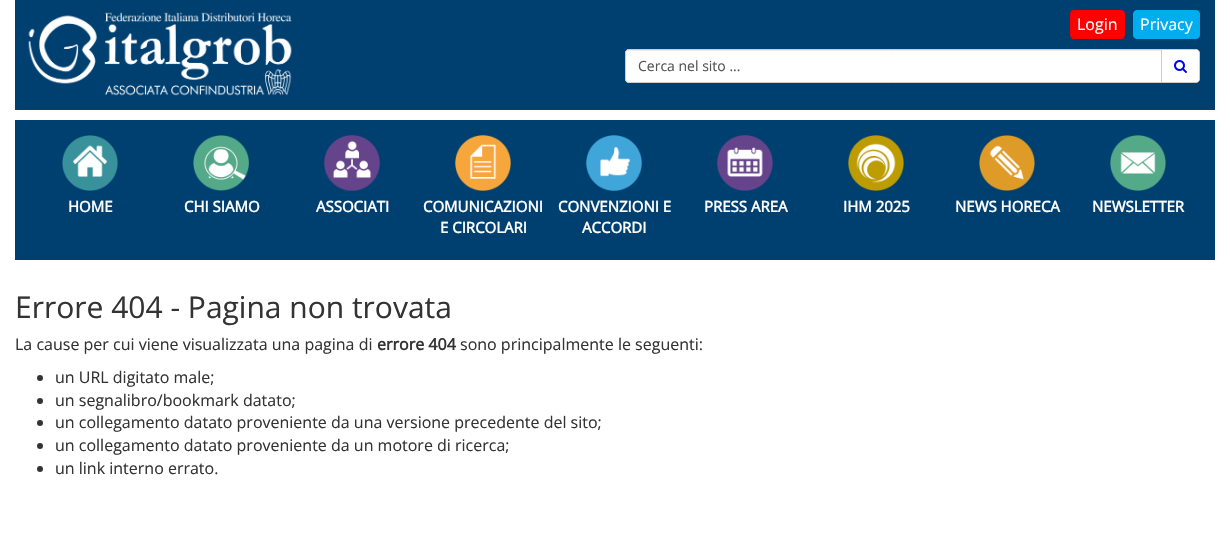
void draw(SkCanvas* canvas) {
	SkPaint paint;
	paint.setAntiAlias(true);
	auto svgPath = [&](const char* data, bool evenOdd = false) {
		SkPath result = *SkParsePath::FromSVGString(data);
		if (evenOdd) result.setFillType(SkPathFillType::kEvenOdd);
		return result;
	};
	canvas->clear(0xffffffff);
	paint.setColor(0xff004071);
	canvas->drawRect(SkRect::MakeXYWH(15, 0, 1200, 110), paint);
	canvas->drawImageRect(SkImages::DeferredFromEncodedData(SkData::MakeFromFileName("img1.png")), SkRect::MakeXYWH(28, 12, 264, 84), SkSamplingOptions());
	paint.setColor(0xffff0000);
	canvas->drawRoundRect(SkRect::MakeXYWH(1070.5, 10.5, 54, 28), 3.5, 3.5, paint);
	paint.setStroke(true);
	paint.setStrokeWidth(1);
	canvas->drawRoundRect(SkRect::MakeXYWH(1070.5, 10.5, 54, 28), 3.5, 3.5, paint);
	SkFont f1(fontMgr->matchFamilyStyle("Open Sans", SkFontStyle::Normal()), 16);
	f1.setSubpixel(true);
	paint.setStroke(false);
	paint.setColor(0xffffffff);
	canvas->drawString("Login", 1077, 30, f1, paint);
	paint.setColor(0xff00aeef);
	canvas->drawRoundRect(SkRect::MakeXYWH(1133.5, 10.5, 66, 28), 3.5, 3.5, paint);
	paint.setStroke(true);
	canvas->drawRoundRect(SkRect::MakeXYWH(1133.5, 10.5, 66, 28), 3.5, 3.5, paint);
	paint.setStroke(false);
	paint.setColor(0xffffffff);
	canvas->drawString("Privacy", 1140, 30, f1, paint);
	canvas->drawPath(svgPath("M629 49H1162V83H629C627 83 625 81 625 79V53C625 51 627 49 629 49Z"), paint);
	paint.setColor(0xffececec);
	canvas->drawPath(svgPath("M629 51H1161V50H629C627 50 626 52 626 54C626 52 627 51 629 51Z"), paint);
	paint.setStroke(true);
	paint.setColor(0xffcccccc);
	canvas->drawPath(svgPath("M629 49.5H1161.5V82.5H629C627 82.5 625.5 81 625.5 79V53C625.5 51 627 49.5 629 49.5Z"), paint);
	SkFont f2(fontMgr->matchFamilyStyle("Open Sans", SkFontStyle::Normal()), 14);
	f2.setSubpixel(true);
	paint.setStroke(false);
	paint.setColor(0xff555555);
	canvas->drawString("Cerca nel sito ...", 638, 71, f2, paint);
	paint.setColor(0xffffffff);
	canvas->drawPath(svgPath("M1161.5 49.5H1196C1198 49.5 1199.5 51 1199.5 53V79C1199.5 81 1198 82.5 1196 82.5H1161.5Z"), paint);
	paint.setStroke(true);
	paint.setColor(0xffcccccc);
	canvas->drawPath(svgPath("M1161.5 49.5H1196C1198 49.5 1199.5 51 1199.5 53V79C1199.5 81 1198 82.5 1196 82.5H1161.5Z"), paint);
	canvas->drawImageRect(SkImages::DeferredFromEncodedData(SkData::MakeFromFileName("img2.png")), SkRect::MakeXYWH(1174, 60, 13, 13), SkSamplingOptions());
	paint.setStroke(false);
	paint.setColor(0xff004071);
	canvas->drawRect(SkRect::MakeXYWH(15, 120, 1200, 140), paint);
	canvas->drawImageRect(SkImages::DeferredFromEncodedData(SkData::MakeFromFileName("img3.png")), SkRect::MakeXYWH(62, 135, 56, 56), SkSamplingOptions());
	SkFont f3(fontMgr->matchFamilyStyle("Open Sans", SkFontStyle::Bold()), 15);
	f3.setSubpixel(true);
	paint.setColor(0xffffffff);
	canvas->drawString("HOME", 68, 212, f3, paint);
	canvas->drawImageRect(SkImages::DeferredFromEncodedData(SkData::MakeFromFileName("img4.png")), SkRect::MakeXYWH(193, 135, 56, 56), SkSamplingOptions());
	canvas->drawString("CHI SIAMO", 184, 212, f3, paint);
	canvas->drawImageRect(SkImages::DeferredFromEncodedData(SkData::MakeFromFileName("img5.png")), SkRect::MakeXYWH(324, 135, 56, 56), SkSamplingOptions());
	canvas->drawString("ASSOCIATI", 316, 212, f3, paint);
	canvas->drawImageRect(SkImages::DeferredFromEncodedData(SkData::MakeFromFileName("img6.png")), SkRect::MakeXYWH(455, 135, 56, 56), SkSamplingOptions());
	canvas->drawString("COMUNICAZIONI", 423, 212, f3, paint);
	canvas->drawString("E CIRCOLARI", 440, 233, f3, paint);
	canvas->drawImageRect(SkImages::DeferredFromEncodedData(SkData::MakeFromFileName("img7.png")), SkRect::MakeXYWH(586, 135, 56, 56), SkSamplingOptions());
	canvas->drawString("CONVENZIONI E", 558, 212, f3, paint);
	canvas->drawString("ACCORDI", 582, 233, f3, paint);
	canvas->drawImageRect(SkImages::DeferredFromEncodedData(SkData::MakeFromFileName("img8.png")), SkRect::MakeXYWH(717, 135, 56, 56), SkSamplingOptions());
	canvas->drawString("PRESS AREA", 704, 212, f3, paint);
	canvas->drawImageRect(SkImages::DeferredFromEncodedData(SkData::MakeFromFileName("img9.png")), SkRect::MakeXYWH(848, 135, 56, 56), SkSamplingOptions());
	canvas->drawString("IHM 2025", 843, 212, f3, paint);
	canvas->drawImageRect(SkImages::DeferredFromEncodedData(SkData::MakeFromFileName("img10.png")), SkRect::MakeXYWH(979, 135, 56, 56), SkSamplingOptions());
	canvas->drawString("NEWS HORECA", 955, 212, f3, paint);
	canvas->drawImageRect(SkImages::DeferredFromEncodedData(SkData::MakeFromFileName("img11.png")), SkRect::MakeXYWH(1110, 135, 56, 56), SkSamplingOptions());
	canvas->drawString("NEWSLETTER", 1092, 212, f3, paint);
	SkFont f4(fontMgr->matchFamilyStyle("Open Sans", SkFontStyle::Normal()), 30);
	f4.setSubpixel(true);
	paint.setColor(0xff333333);
	canvas->drawString("Errore 404 - Pagina non trovata", 15, 318, f4, paint);
	canvas->drawString("La cause per cui viene visualizzata una pagina di", 15, 350, f1, paint);
	SkFont f5(fontMgr->matchFamilyStyle("Open Sans", SkFontStyle::Bold()), 16);
	f5.setSubpixel(true);
	canvas->drawString("errore 404", 377, 350, f5, paint);
	canvas->drawString("sono principalmente le seguenti:", 460, 350, f1, paint);
	canvas->drawCircle(40, 378, 3, paint);
	canvas->drawString("un URL digitato male;", 55, 383, f1, paint);
	canvas->drawCircle(40, 401, 3, paint);
	canvas->drawString("un segnalibro/bookmark datato;", 55, 406, f1, paint);
	canvas->drawCircle(40, 423, 3, paint);
	canvas->drawString("un collegamento datato proveniente da una versione precedente del sito;", 55, 428, f1, paint);
	canvas->drawCircle(40, 446, 3, paint);
	canvas->drawString("un collegamento datato proveniente da un motore di ricerca;", 55, 451, f1, paint);
	canvas->drawCircle(40, 469, 3, paint);
	canvas->drawString("un link interno errato.", 55, 474, f1, paint);
}
